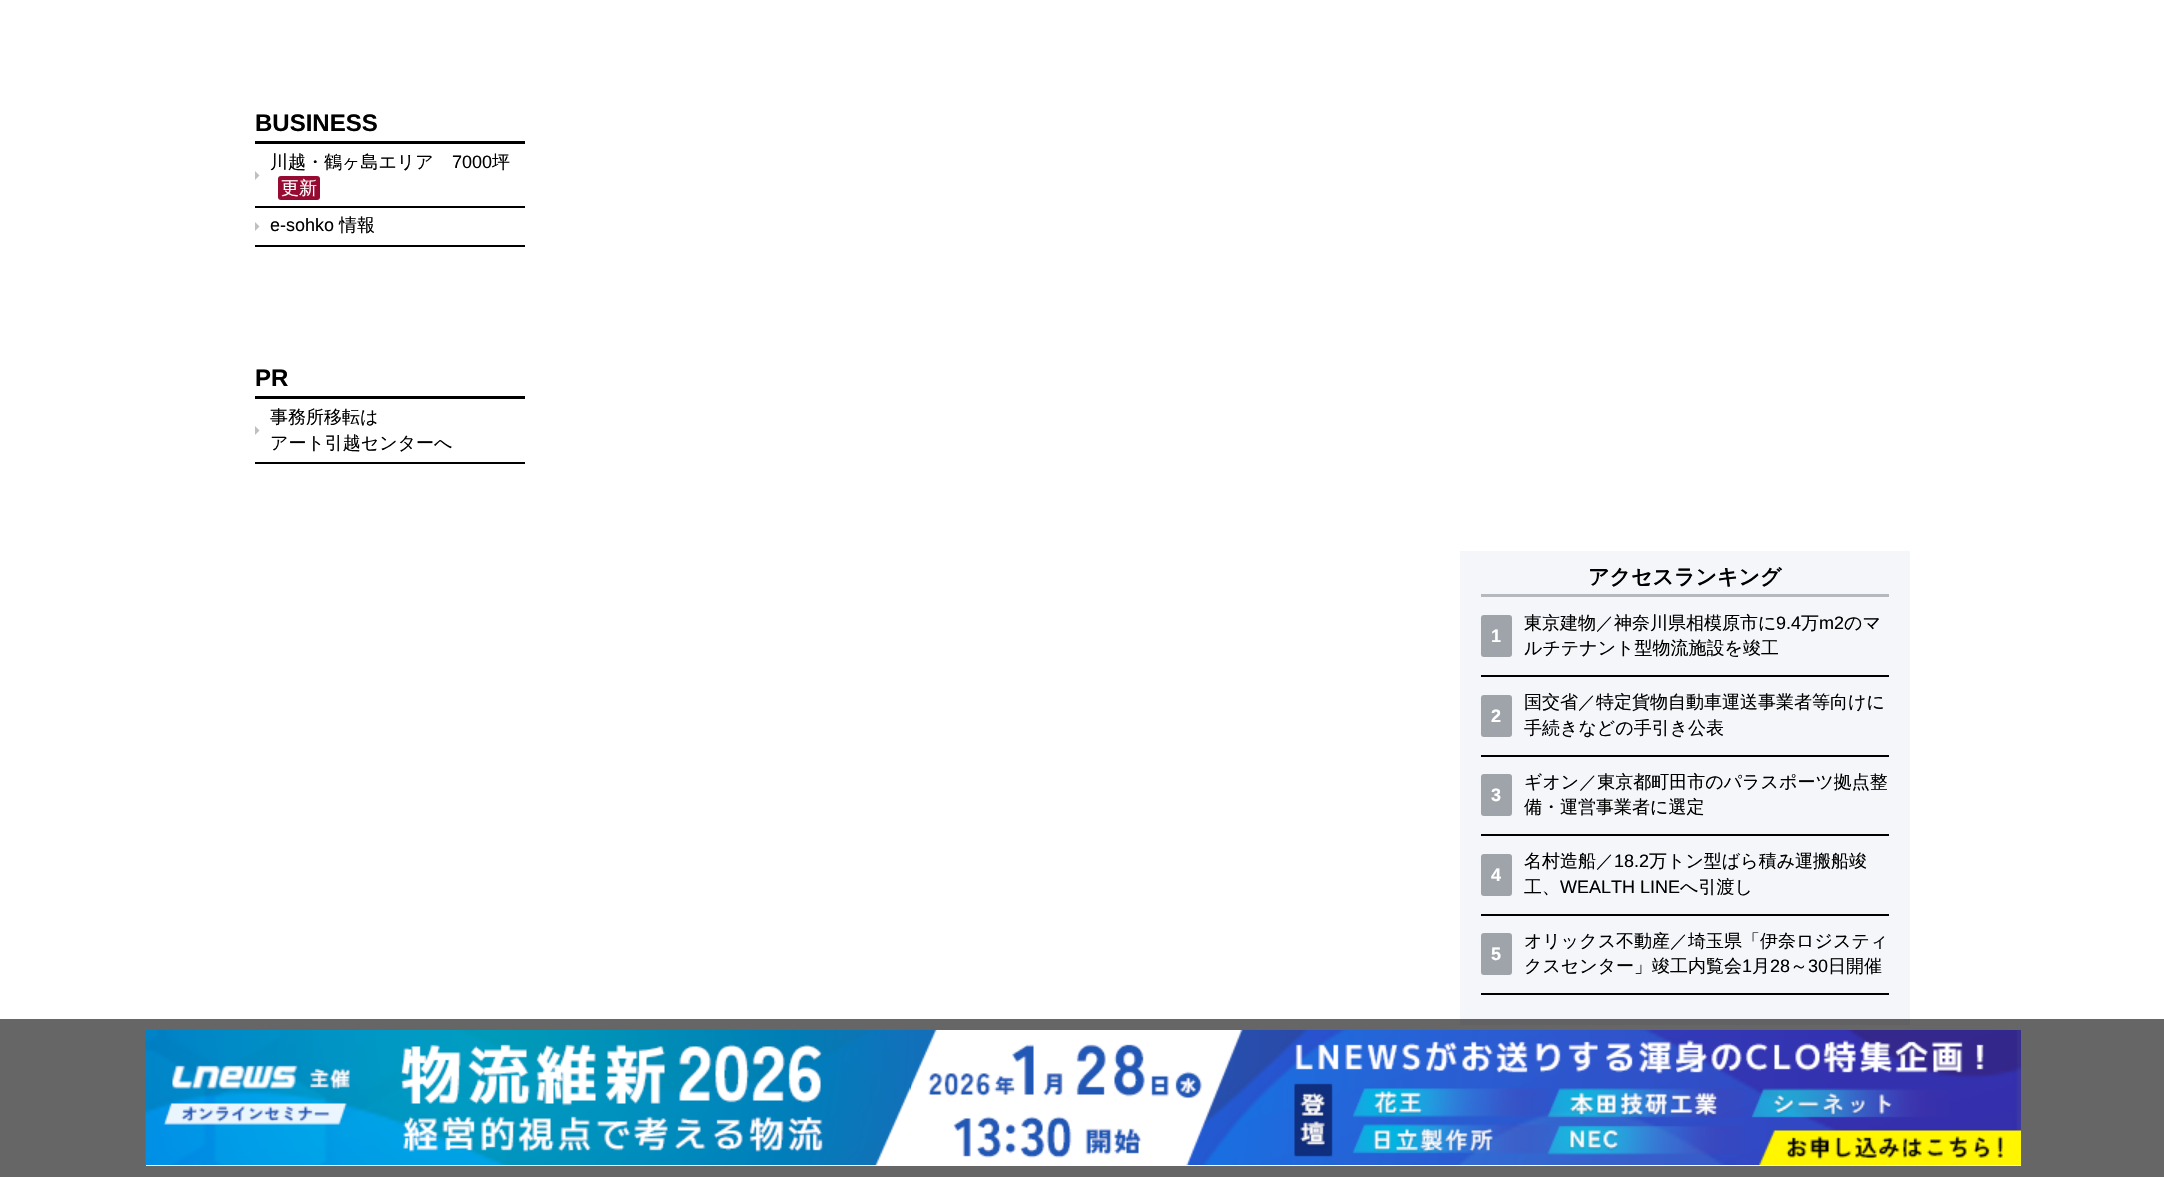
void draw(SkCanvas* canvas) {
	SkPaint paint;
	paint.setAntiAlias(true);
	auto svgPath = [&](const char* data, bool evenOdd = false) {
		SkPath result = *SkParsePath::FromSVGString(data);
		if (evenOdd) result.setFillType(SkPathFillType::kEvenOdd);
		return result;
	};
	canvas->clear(0xffffffff);
	paint.setColor(0xff666666);
	canvas->drawRect(SkRect::MakeXYWH(0, 1019, 2164, 158), paint);
	paint.setColor(0xff000000);
	canvas->drawRect(SkRect::MakeXYWH(255, 141, 270, 3), paint);
	SkFont f1(fontMgr->matchFamilyStyle("Liberation Sans", SkFontStyle::Bold()), 24);
	f1.setSubpixel(true);
	canvas->drawString("BUSINESS", 255, 131, f1, paint);
	canvas->drawRect(SkRect::MakeXYWH(255, 206, 270, 2), paint);
	paint.setColor(0xffbfbfbf);
	canvas->drawPath(svgPath("M255 180V171L259.5 175.5Z"), paint);
	SkFont f2(fontMgr->matchFamilyStyle("WenQuanYi Zen Hei", SkFontStyle(500, SkFontStyle::kNormal_Width, SkFontStyle::kUpright_Slant)), 18);
	f2.setSubpixel(true);
	paint.setColor(0xff000000);
	canvas->drawString("川越・鶴ヶ島エリア", 270, 168, f2, paint);
	SkFont f3(fontMgr->matchFamilyStyle("Liberation Sans", SkFontStyle::Normal()), 18);
	f3.setSubpixel(true);
	canvas->drawString("7000", 452, 168, f3, paint);
	canvas->drawString("坪", 492, 168, f2, paint);
	paint.setColor(0xff970a31);
	canvas->drawRoundRect(SkRect::MakeXYWH(278, 176, 42, 24), 3, 3, paint);
	paint.setColor(0xffffffff);
	canvas->drawString("更新", 281, 194, f2, paint);
	paint.setColor(0xff000000);
	canvas->drawRect(SkRect::MakeXYWH(255, 245, 270, 2), paint);
	paint.setColor(0xffbfbfbf);
	canvas->drawPath(svgPath("M255 231V222L259.5 226.5Z"), paint);
	paint.setColor(0xff000000);
	canvas->drawString("e-sohko", 270, 231, f3, paint);
	canvas->drawString("情報", 339, 231, f2, paint);
	canvas->drawRect(SkRect::MakeXYWH(255, 396, 270, 3), paint);
	canvas->drawString("PR", 255, 386, f1, paint);
	canvas->drawRect(SkRect::MakeXYWH(255, 462, 270, 2), paint);
	paint.setColor(0xffbfbfbf);
	canvas->drawPath(svgPath("M255 435V426L259.5 430.5Z"), paint);
	paint.setColor(0xff000000);
	canvas->drawString("事務所移転は", 270, 423, f2, paint);
	canvas->drawString("アート引越センターへ", 270, 449, f2, paint);
	paint.setColor(0xfff4f6f9);
	canvas->drawRect(SkRect::MakeXYWH(1460, 551, 450, 468), paint);
	paint.setColor(0xff626264);
	canvas->drawRect(SkRect::MakeXYWH(1460, 1019, 450, 6), paint);
	paint.setColor(0xffb5b8bd);
	canvas->drawRect(SkRect::MakeXYWH(1481, 594, 408, 3), paint);
	SkFont f4(fontMgr->matchFamilyStyle("WenQuanYi Zen Hei", SkFontStyle::Bold()), 21);
	f4.setSubpixel(true);
	paint.setColor(0xff000000);
	canvas->drawString("アクセスランキング", 1588, 584, f4, paint);
	canvas->drawRect(SkRect::MakeXYWH(1481, 675, 408, 2), paint);
	paint.setColor(0xff9fa4ab);
	canvas->drawRoundRect(SkRect::MakeXYWH(1481, 615, 31, 42), 3, 3, paint);
	SkFont f5(fontMgr->matchFamilyStyle("Liberation Sans", SkFontStyle::Bold()), 18);
	f5.setSubpixel(true);
	paint.setColor(0xffffffff);
	canvas->drawString("1", 1491, 642, f5, paint);
	paint.setColor(0xff000000);
	canvas->drawString("東京建物／神奈川県相模原市に", 1524, 629, f2, paint);
	canvas->drawString("9.4", 1776, 629, f3, paint);
	canvas->drawString("万", 1801, 629, f2, paint);
	canvas->drawString("m2", 1819, 629, f3, paint);
	canvas->drawString("のマ", 1844, 629, f2, paint);
	canvas->drawString("ルチテナント型物流施設を竣工", 1524, 654, f2, paint);
	canvas->drawRect(SkRect::MakeXYWH(1481, 755, 408, 2), paint);
	paint.setColor(0xff9fa4ab);
	canvas->drawRoundRect(SkRect::MakeXYWH(1481, 695, 31, 42), 3, 3, paint);
	paint.setColor(0xffffffff);
	canvas->drawString("2", 1491, 722, f5, paint);
	paint.setColor(0xff000000);
	canvas->drawString("国交省／特定貨物自動車運送事業者等向けに", 1524, 708, f2, paint);
	canvas->drawString("手続きなどの手引き公表", 1524, 734, f2, paint);
	canvas->drawRect(SkRect::MakeXYWH(1481, 834, 408, 2), paint);
	paint.setColor(0xff9fa4ab);
	canvas->drawRoundRect(SkRect::MakeXYWH(1481, 774, 31, 42), 3, 3, paint);
	paint.setColor(0xffffffff);
	canvas->drawString("3", 1491, 801, f5, paint);
	paint.setColor(0xff000000);
	canvas->drawString("ギオン／東京都町田市のパラスポーツ拠点整", 1524, 788, f2, paint);
	canvas->drawString("備・運営事業者に選定", 1524, 813, f2, paint);
	canvas->drawRect(SkRect::MakeXYWH(1481, 914, 408, 2), paint);
	paint.setColor(0xff9fa4ab);
	canvas->drawRoundRect(SkRect::MakeXYWH(1481, 854, 31, 42), 3, 3, paint);
	paint.setColor(0xffffffff);
	canvas->drawString("4", 1491, 881, f5, paint);
	paint.setColor(0xff000000);
	canvas->drawString("名村造船／", 1524, 867, f2, paint);
	canvas->drawString("18.2", 1614, 867, f3, paint);
	canvas->drawString("万トン型ばら積み運搬船竣", 1649, 867, f2, paint);
	canvas->drawString("工、", 1524, 893, f2, paint);
	canvas->drawString("WEALTH LINE", 1560, 893, f3, paint);
	canvas->drawString("へ引渡し", 1680, 893, f2, paint);
	canvas->drawRect(SkRect::MakeXYWH(1481, 993, 408, 2), paint);
	paint.setColor(0xff9fa4ab);
	canvas->drawRoundRect(SkRect::MakeXYWH(1481, 933, 31, 42), 3, 3, paint);
	paint.setColor(0xffffffff);
	canvas->drawString("5", 1491, 960, f5, paint);
	paint.setColor(0xff000000);
	canvas->drawString("オリックス不動産／埼玉県「伊奈ロジスティ", 1524, 947, f2, paint);
	canvas->drawString("クスセンター」竣工内覧会", 1524, 972, f2, paint);
	canvas->drawString("1", 1742, 972, f3, paint);
	canvas->drawString("月", 1752, 972, f2, paint);
	canvas->drawString("28", 1770, 972, f3, paint);
	canvas->drawString("～", 1790, 972, f2, paint);
	canvas->drawString("30", 1808, 972, f3, paint);
	canvas->drawString("日開催", 1828, 972, f2, paint);
	paint.setColor(0xffffffff);
	canvas->drawRect(SkRect::MakeXYWH(146, 1165, 1875, 1), paint);
	canvas->drawImageRect(SkImages::DeferredFromEncodedData(SkData::MakeFromFileName("img1.png")), SkRect::MakeXYWH(145, 1030, 1876, 135), SkSamplingOptions());
}
